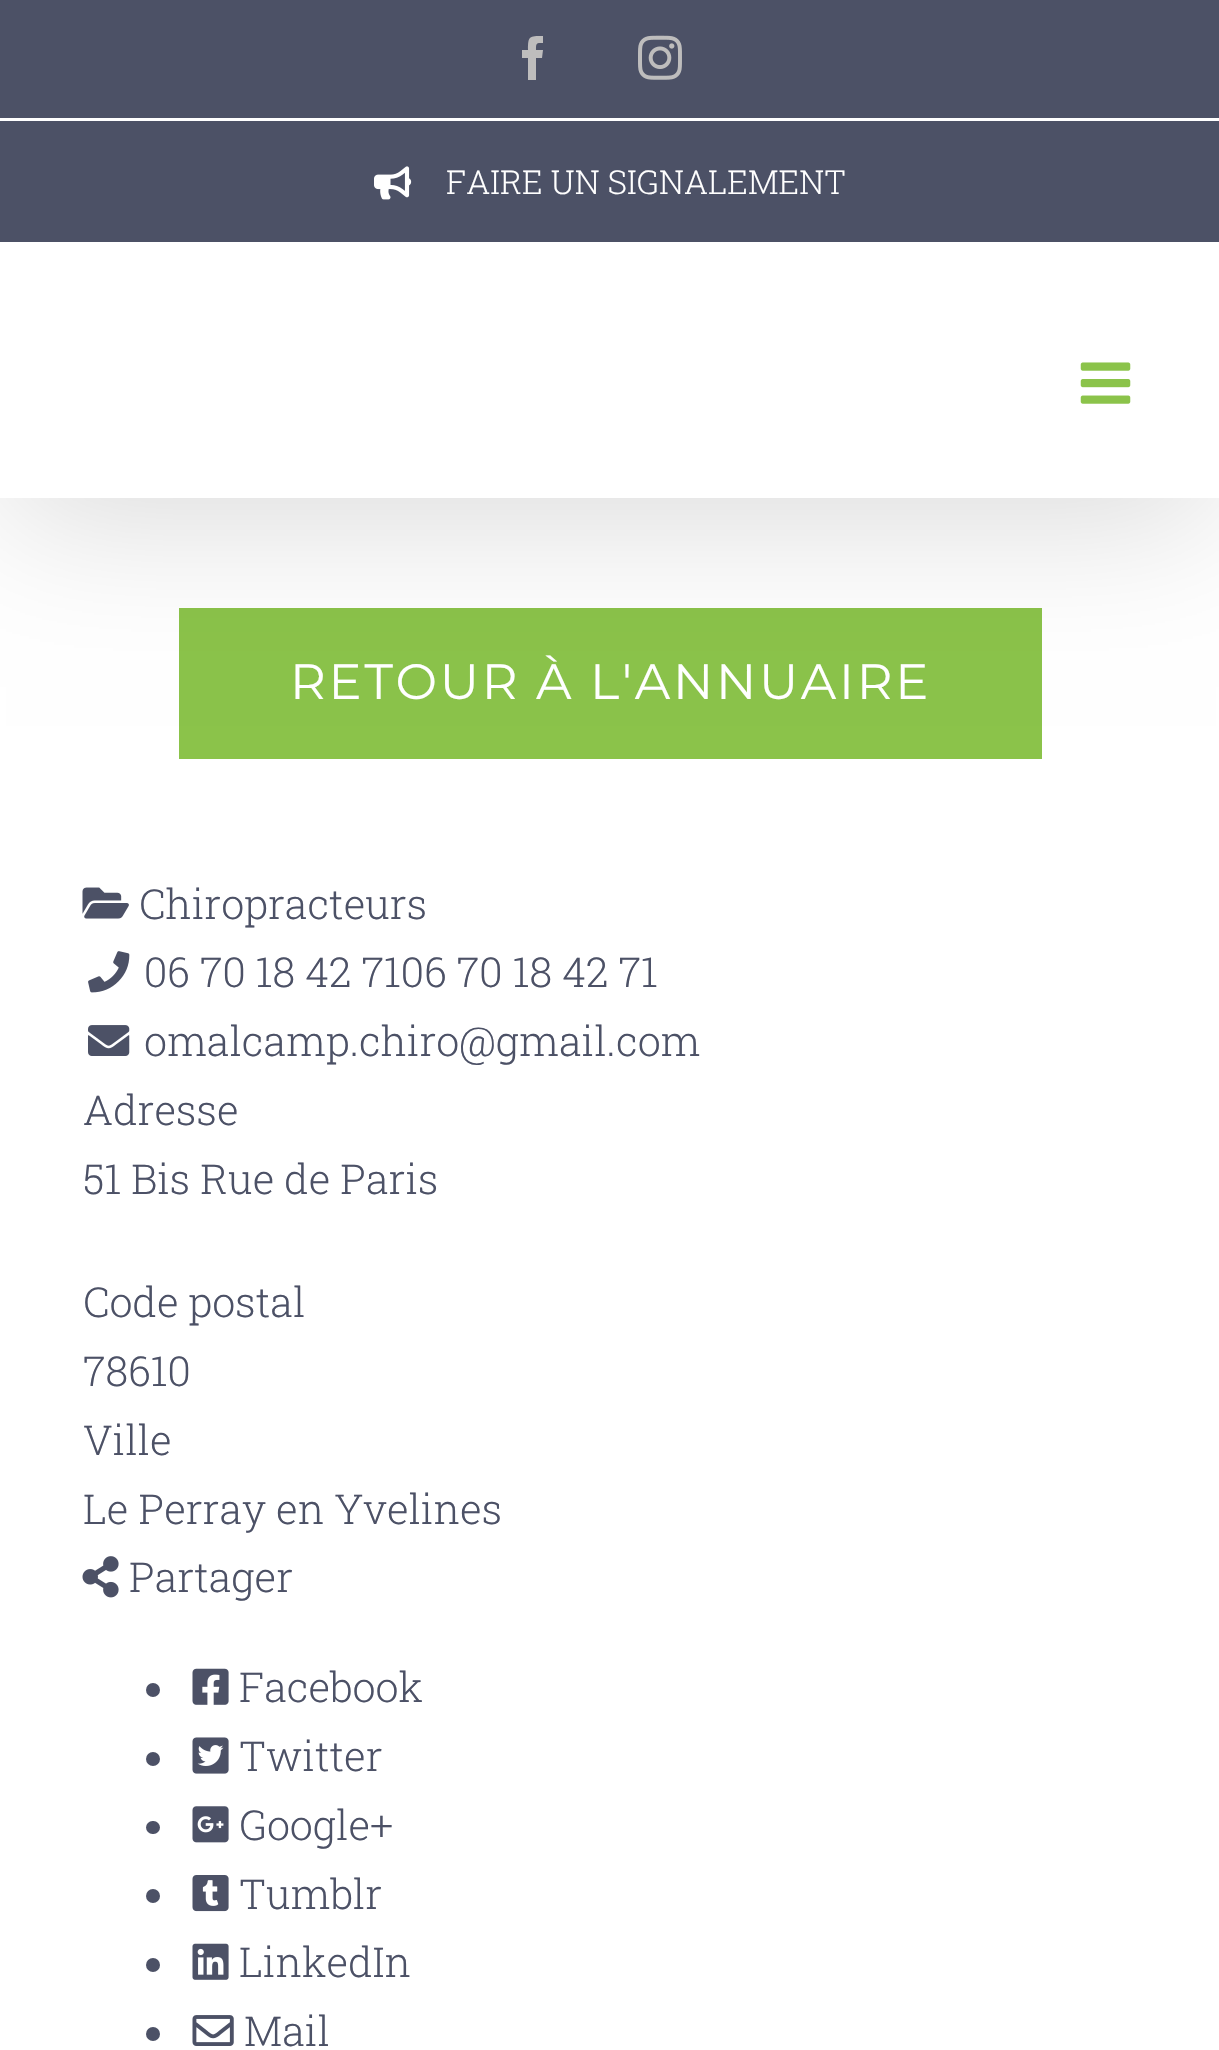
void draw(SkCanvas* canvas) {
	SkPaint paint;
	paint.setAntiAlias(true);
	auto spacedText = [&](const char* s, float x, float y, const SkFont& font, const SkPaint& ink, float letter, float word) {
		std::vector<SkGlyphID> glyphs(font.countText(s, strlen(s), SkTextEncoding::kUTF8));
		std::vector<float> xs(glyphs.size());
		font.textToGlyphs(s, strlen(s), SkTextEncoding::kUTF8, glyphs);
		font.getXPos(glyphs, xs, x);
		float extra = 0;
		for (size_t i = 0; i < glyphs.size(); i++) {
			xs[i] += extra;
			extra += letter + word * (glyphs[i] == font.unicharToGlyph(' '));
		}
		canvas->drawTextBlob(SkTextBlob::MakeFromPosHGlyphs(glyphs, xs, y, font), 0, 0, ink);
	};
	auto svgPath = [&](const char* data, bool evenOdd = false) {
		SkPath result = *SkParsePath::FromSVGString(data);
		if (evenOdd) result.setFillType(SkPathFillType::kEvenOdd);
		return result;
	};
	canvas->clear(0xffffffff);
	paint.setColor(0xff8bc34a);
	canvas->drawRect(SkRect::MakeXYWH(179, 608, 863, 151), paint);
	paint.setColor(0x24000000);
	paint.setMaskFilter(SkMaskFilter::MakeBlur(kNormal_SkBlurStyle, 69));
	canvas->drawRect(SkRect::MakeXYWH(6, 33, 1210, 487), paint);
	paint.setMaskFilter(nullptr);
	paint.setColor(0xff4c5166);
	canvas->drawRect(SkRect::MakeXYWH(0, 0, 1219, 242), paint);
	paint.setColor(0xffffffff);
	canvas->drawRect(SkRect::MakeXYWH(0, 242, 1219, 256), paint);
	canvas->drawRect(SkRect::MakeXYWH(0, 118, 1219, 3), paint);
	paint.setColor(0xffbebdbd);
	canvas->drawPath(svgPath("M536 80H528V58H522V50H528C528 36 529 36 543 36V43C536 43 536 43 536 50H543L542 58H536Z"), paint);
	canvas->drawImageRect(SkImages::DeferredFromEncodedData(SkData::MakeFromFileName("img1.png")), SkRect::MakeXYWH(638, 35, 44, 45), SkSamplingOptions());
	canvas->drawImageRect(SkImages::DeferredFromEncodedData(SkData::MakeFromFileName("img2.png")), SkRect::MakeXYWH(374, 166, 38, 34), SkSamplingOptions());
	SkFont f1(fontMgr->matchFamilyStyle("Roboto Slab", SkFontStyle(300, SkFontStyle::kNormal_Width, SkFontStyle::kUpright_Slant)), 33);
	f1.setSubpixel(true);
	paint.setColor(0xffffffff);
	canvas->drawString("FAIRE UN SIGNALEMENT", 446, 194, f1, paint);
	canvas->drawImageRect(SkImages::DeferredFromEncodedData(SkData::MakeFromFileName("img3.png")), SkRect::MakeXYWH(1080, 362, 51, 42), SkSamplingOptions());
	SkFont f2(fontMgr->matchFamilyStyle("Montserrat", SkFontStyle(100, SkFontStyle::kNormal_Width, SkFontStyle::kUpright_Slant)), 49.5);
	f2.setSubpixel(true);
	spacedText("RETOUR À L'ANNUAIRE", 290, 699, f2, paint, 2.75, 0);
	canvas->drawImageRect(SkImages::DeferredFromEncodedData(SkData::MakeFromFileName("img4.png")), SkRect::MakeXYWH(82, 887, 47, 32), SkSamplingOptions());
	SkFont f3(fontMgr->matchFamilyStyle("Roboto Slab", SkFontStyle(300, SkFontStyle::kNormal_Width, SkFontStyle::kUpright_Slant)), 41.25);
	f3.setSubpixel(true);
	paint.setColor(0xff4c5166);
	canvas->drawString("Chiropracteurs", 139, 919, f3, paint);
	canvas->drawImageRect(SkImages::DeferredFromEncodedData(SkData::MakeFromFileName("img5.png")), SkRect::MakeXYWH(88, 951, 42, 42), SkSamplingOptions());
	canvas->drawString("06 70 18 42 7106 70 18 42 71", 144, 987, f3, paint);
	canvas->drawImageRect(SkImages::DeferredFromEncodedData(SkData::MakeFromFileName("img6.png")), SkRect::MakeXYWH(88, 1025, 42, 31), SkSamplingOptions());
	canvas->drawString("omalcamp.chiro@gmail.com", 144, 1056, f3, paint);
	canvas->drawString("Adresse", 83, 1125, f3, paint);
	canvas->drawString("51 Bis Rue de Paris", 83, 1194, f3, paint);
	canvas->drawString("Code postal", 83, 1317, f3, paint);
	canvas->drawString("78610", 83, 1386, f3, paint);
	canvas->drawString("Ville", 83, 1455, f3, paint);
	canvas->drawString("Le Perray en Yvelines", 83, 1524, f3, paint);
	canvas->drawImageRect(SkImages::DeferredFromEncodedData(SkData::MakeFromFileName("img7.png")), SkRect::MakeXYWH(82, 1556, 37, 42), SkSamplingOptions());
	canvas->drawString("Partager", 129, 1592, f3, paint);
	canvas->drawCircle(153, 1690, 7, paint);
	canvas->drawImageRect(SkImages::DeferredFromEncodedData(SkData::MakeFromFileName("img8.png")), SkRect::MakeXYWH(192, 1668, 37, 37), SkSamplingOptions());
	canvas->drawString("Facebook", 239, 1702, f3, paint);
	canvas->drawCircle(153, 1759, 7, paint);
	canvas->drawImageRect(SkImages::DeferredFromEncodedData(SkData::MakeFromFileName("img9.png")), SkRect::MakeXYWH(192, 1737, 37, 37), SkSamplingOptions());
	canvas->drawString("Twitter", 239, 1771, f3, paint);
	canvas->drawRoundRect(SkRect::MakeXYWH(146, 1821, 14, 13), 6.5, 6.5, paint);
	canvas->drawImageRect(SkImages::DeferredFromEncodedData(SkData::MakeFromFileName("img10.png")), SkRect::MakeXYWH(192, 1806, 37, 37), SkSamplingOptions());
	canvas->drawString("Google+", 239, 1840, f3, paint);
	canvas->drawCircle(153, 1896, 7, paint);
	canvas->drawImageRect(SkImages::DeferredFromEncodedData(SkData::MakeFromFileName("img11.png")), SkRect::MakeXYWH(192, 1875, 37, 37), SkSamplingOptions());
	canvas->drawString("Tumblr", 239, 1909, f3, paint);
	canvas->drawCircle(153, 1965, 7, paint);
	canvas->drawImageRect(SkImages::DeferredFromEncodedData(SkData::MakeFromFileName("img12.png")), SkRect::MakeXYWH(192, 1943, 37, 37), SkSamplingOptions());
	canvas->drawString("LinkedIn", 239, 1977, f3, paint);
	canvas->drawCircle(153, 2034, 7, paint);
	canvas->drawImageRect(SkImages::DeferredFromEncodedData(SkData::MakeFromFileName("img13.png")), SkRect::MakeXYWH(192, 2015, 42, 31), SkSamplingOptions());
	canvas->drawString("Mail", 244, 2046, f3, paint);
}
